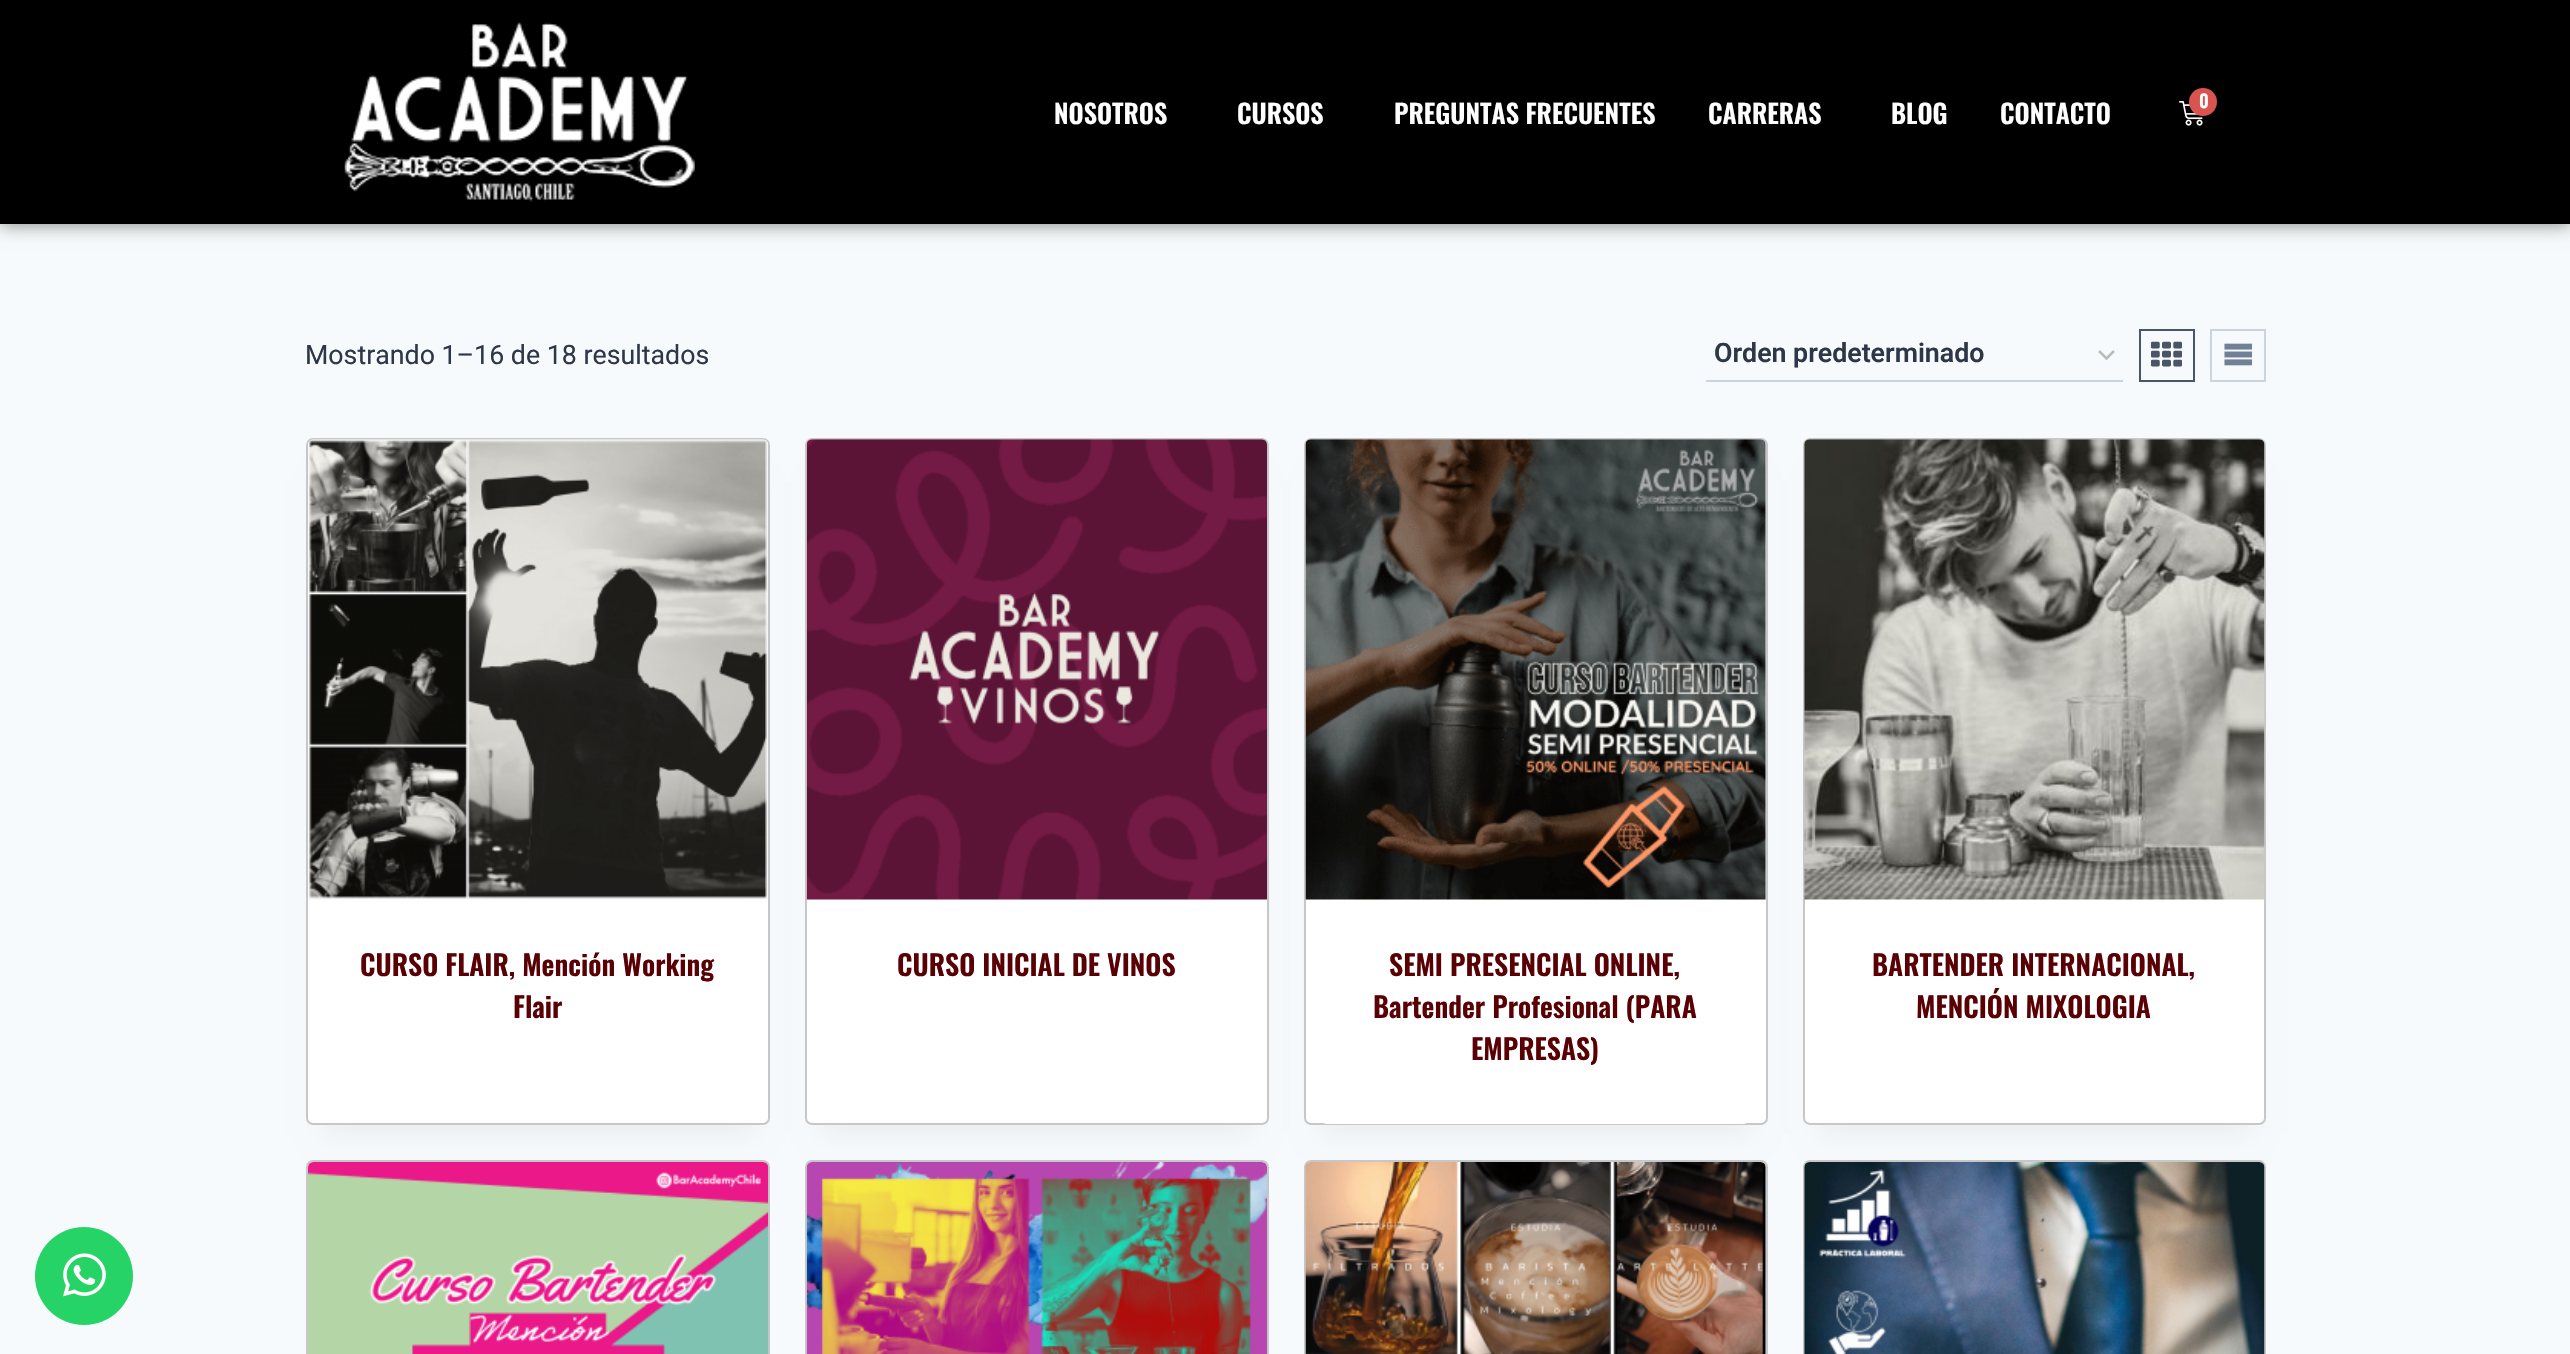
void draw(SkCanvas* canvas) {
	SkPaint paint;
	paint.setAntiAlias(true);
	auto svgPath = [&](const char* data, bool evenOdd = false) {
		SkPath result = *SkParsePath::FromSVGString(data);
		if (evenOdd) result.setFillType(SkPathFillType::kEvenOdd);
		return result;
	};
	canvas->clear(0xfff7fafc);
	paint.setColor(0x80000000);
	paint.setMaskFilter(SkMaskFilter::MakeBlur(kNormal_SkBlurStyle, 9));
	canvas->drawRect(SkRect::MakeXYWH(0, 0, 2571, 224), paint);
	paint.setMaskFilter(nullptr);
	paint.setColor(0xff000000);
	canvas->drawRect(SkRect::MakeXYWH(0, 0, 2570, 224), paint);
	canvas->drawImageRect(SkImages::DeferredFromEncodedData(SkData::MakeFromFileName("img1.png")), SkRect::MakeXYWH(344, 22, 351, 180), SkSamplingOptions());
	SkFont f1(fontMgr->matchFamilyStyle("Oswald", SkFontStyle(600, SkFontStyle::kNormal_Width, SkFontStyle::kUpright_Slant)), 26.25);
	f1.setSubpixel(true);
	paint.setColor(0xffffffff);
	canvas->drawString("NOSOTROS", 1054, 124, f1, paint);
	canvas->drawString("CURSOS", 1237, 124, f1, paint);
	canvas->drawString("PREGUNTAS FRECUENTES", 1394, 124, f1, paint);
	canvas->drawString("CARRERAS", 1708, 124, f1, paint);
	canvas->drawString("BLOG", 1891, 124, f1, paint);
	canvas->drawString("CONTACTO", 2000, 124, f1, paint);
	canvas->drawImageRect(SkImages::DeferredFromEncodedData(SkData::MakeFromFileName("img2.png")), SkRect::MakeXYWH(2179, 101, 24, 25), SkSamplingOptions());
	paint.setColor(0xffd9534f);
	canvas->drawCircle(2203, 102, 14, paint);
	SkFont f2(fontMgr->matchFamilyStyle("Oswald", SkFontStyle(600, SkFontStyle::kNormal_Width, SkFontStyle::kUpright_Slant)), 18);
	f2.setSubpixel(true);
	paint.setColor(0xffffffff);
	canvas->drawString("0", 2199, 108, f2, paint);
	SkFont f3(fontMgr->matchFamilyStyle("Roboto", SkFontStyle::Normal()), 26.75);
	f3.setSubpixel(true);
	paint.setColor(0xff2d3748);
	canvas->drawString("Mostrando 1–16 de 18 resultados", 305, 364, f3, paint);
	paint.setStroke(true);
	paint.setStrokeWidth(2.5);
	paint.setColor(0xffbbbbbb);
	canvas->drawPath(svgPath("M2099 351L2106.5 358.5L2114 351"), paint);
	paint.setStroke(false);
	paint.setColor(0xffcbd5e0);
	canvas->drawRect(SkRect::MakeXYWH(1706, 380, 417, 2), paint);
	SkFont f4(fontMgr->matchFamilyStyle("Roboto", SkFontStyle(600, SkFontStyle::kNormal_Width, SkFontStyle::kUpright_Slant)), 26.75);
	f4.setSubpixel(true);
	paint.setColor(0xff2d3748);
	canvas->drawString("Orden predeterminado", 1714, 362, f4, paint);
	paint.setStroke(true);
	paint.setStrokeWidth(2);
	paint.setColor(0xff4a5568);
	canvas->drawRect(SkRect::MakeXYWH(2140, 330, 54, 51), paint);
	canvas->drawImageRect(SkImages::DeferredFromEncodedData(SkData::MakeFromFileName("img3.png")), SkRect::MakeXYWH(2151, 341, 31, 26), SkSamplingOptions());
	paint.setColor(0xffcbd5e0);
	canvas->drawRect(SkRect::MakeXYWH(2211, 330, 54, 51), paint);
	canvas->drawImageRect(SkImages::DeferredFromEncodedData(SkData::MakeFromFileName("img4.png")), SkRect::MakeXYWH(2224, 343, 29, 23), SkSamplingOptions());
	paint.setStroke(false);
	paint.setColor(0x0d000000);
	paint.setMaskFilter(SkMaskFilter::MakeBlur(kNormal_SkBlurStyle, 13));
	canvas->drawRect(SkRect::MakeXYWH(324, 481, 429, 653), paint);
	paint.setMaskFilter(nullptr);
	paint.setColor(0xffffffff);
	canvas->drawRoundRect(SkRect::MakeXYWH(306, 438, 464, 687), 7, 7, paint);
	paint.setStroke(true);
	paint.setColor(0x6b7a7a7a);
	canvas->drawRoundRect(SkRect::MakeXYWH(307, 439, 462, 685), 6, 6, paint);
	canvas->drawImageRect(SkImages::DeferredFromEncodedData(SkData::MakeFromFileName("img5.png")), SkRect::MakeXYWH(308, 439, 460, 461), SkSamplingOptions());
	SkFont f5(fontMgr->matchFamilyStyle("Oswald", SkFontStyle(600, SkFontStyle::kNormal_Width, SkFontStyle::kUpright_Slant)), 28);
	f5.setSubpixel(true);
	paint.setStroke(false);
	paint.setColor(0xff590004);
	canvas->drawString("CURSO FLAIR, Mención Working", 360, 976, f5, paint);
	canvas->drawString("Flair", 513, 1018, f5, paint);
	paint.setColor(0x0d000000);
	paint.setMaskFilter(SkMaskFilter::MakeBlur(kNormal_SkBlurStyle, 13));
	canvas->drawRect(SkRect::MakeXYWH(823, 481, 428, 653), paint);
	paint.setMaskFilter(nullptr);
	paint.setColor(0xffffffff);
	canvas->drawRoundRect(SkRect::MakeXYWH(805, 438, 464, 687), 7, 7, paint);
	paint.setStroke(true);
	paint.setColor(0x6b7a7a7a);
	canvas->drawRoundRect(SkRect::MakeXYWH(806, 439, 462, 685), 6, 6, paint);
	canvas->drawImageRect(SkImages::DeferredFromEncodedData(SkData::MakeFromFileName("img6.png")), SkRect::MakeXYWH(806, 439, 461, 461), SkSamplingOptions());
	paint.setStroke(false);
	paint.setColor(0xff590004);
	canvas->drawString("CURSO INICIAL DE VINOS", 897, 976, f5, paint);
	paint.setColor(0x0d000000);
	paint.setMaskFilter(SkMaskFilter::MakeBlur(kNormal_SkBlurStyle, 13));
	canvas->drawRect(SkRect::MakeXYWH(1321, 481, 429, 653), paint);
	paint.setMaskFilter(nullptr);
	paint.setColor(0xffffffff);
	canvas->drawRoundRect(SkRect::MakeXYWH(1304, 438, 464, 687), 7, 7, paint);
	paint.setStroke(true);
	paint.setColor(0x6b7a7a7a);
	canvas->drawRoundRect(SkRect::MakeXYWH(1305, 439, 462, 685), 6, 6, paint);
	canvas->drawImageRect(SkImages::DeferredFromEncodedData(SkData::MakeFromFileName("img7.png")), SkRect::MakeXYWH(1305, 439, 461, 461), SkSamplingOptions());
	paint.setStroke(false);
	paint.setColor(0xffffffff);
	canvas->drawRoundRect(SkRect::MakeXYWH(1320, 900, 430, 224), 7, 7, paint);
	paint.setColor(0xff590004);
	canvas->drawString("SEMI PRESENCIAL ONLINE,", 1389, 976, f5, paint);
	canvas->drawString("Bartender Profesional (PARA", 1373, 1018, f5, paint);
	canvas->drawString("EMPRESAS)", 1471, 1060, f5, paint);
	paint.setColor(0x0d000000);
	paint.setMaskFilter(SkMaskFilter::MakeBlur(kNormal_SkBlurStyle, 13));
	canvas->drawRect(SkRect::MakeXYWH(1820, 481, 429, 653), paint);
	paint.setMaskFilter(nullptr);
	paint.setColor(0xffffffff);
	canvas->drawRoundRect(SkRect::MakeXYWH(1803, 438, 463, 687), 7, 7, paint);
	paint.setStroke(true);
	paint.setColor(0x6b7a7a7a);
	canvas->drawRoundRect(SkRect::MakeXYWH(1804, 439, 461, 685), 6, 6, paint);
	canvas->drawImageRect(SkImages::DeferredFromEncodedData(SkData::MakeFromFileName("img8.png")), SkRect::MakeXYWH(1804, 439, 461, 461), SkSamplingOptions());
	paint.setStroke(false);
	paint.setColor(0xff590004);
	canvas->drawString("BARTENDER INTERNACIONAL,", 1872, 976, f5, paint);
	canvas->drawString("MENCIÓN MIXOLOGIA", 1916, 1018, f5, paint);
	paint.setColor(0xffffffff);
	canvas->drawRoundRect(SkRect::MakeXYWH(306, 1160, 464, 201), 7, 7, paint);
	paint.setStroke(true);
	paint.setColor(0x6b7a7a7a);
	canvas->drawRoundRect(SkRect::MakeXYWH(307, 1161, 462, 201), 6, 6, paint);
	canvas->drawImageRect(SkImages::DeferredFromEncodedData(SkData::MakeFromFileName("img9.png")), SkRect::MakeXYWH(308, 1162, 461, 192), SkSamplingOptions());
	paint.setStroke(false);
	paint.setColor(0xffffffff);
	canvas->drawRoundRect(SkRect::MakeXYWH(805, 1160, 464, 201), 7, 7, paint);
	paint.setStroke(true);
	paint.setColor(0x6b7a7a7a);
	canvas->drawRoundRect(SkRect::MakeXYWH(806, 1161, 462, 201), 6, 6, paint);
	canvas->drawImageRect(SkImages::DeferredFromEncodedData(SkData::MakeFromFileName("img10.png")), SkRect::MakeXYWH(806, 1162, 461, 192), SkSamplingOptions());
	paint.setStroke(false);
	paint.setColor(0xffffffff);
	canvas->drawRoundRect(SkRect::MakeXYWH(1304, 1160, 464, 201), 7, 7, paint);
	paint.setStroke(true);
	paint.setColor(0x6b7a7a7a);
	canvas->drawRoundRect(SkRect::MakeXYWH(1305, 1161, 462, 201), 6, 6, paint);
	canvas->drawImageRect(SkImages::DeferredFromEncodedData(SkData::MakeFromFileName("img11.png")), SkRect::MakeXYWH(1305, 1162, 461, 192), SkSamplingOptions());
	paint.setStroke(false);
	paint.setColor(0xffffffff);
	canvas->drawRoundRect(SkRect::MakeXYWH(1803, 1160, 463, 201), 7, 7, paint);
	paint.setStroke(true);
	paint.setColor(0x6b7a7a7a);
	canvas->drawRoundRect(SkRect::MakeXYWH(1804, 1161, 461, 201), 6, 6, paint);
	canvas->drawImageRect(SkImages::DeferredFromEncodedData(SkData::MakeFromFileName("img12.png")), SkRect::MakeXYWH(1804, 1162, 461, 192), SkSamplingOptions());
	paint.setStroke(false);
	paint.setColor(0xff25d366);
	canvas->drawCircle(84, 1276, 49, paint);
	canvas->drawImageRect(SkImages::DeferredFromEncodedData(SkData::MakeFromFileName("img13.png")), SkRect::MakeXYWH(63, 1253, 43, 44), SkSamplingOptions());
}
